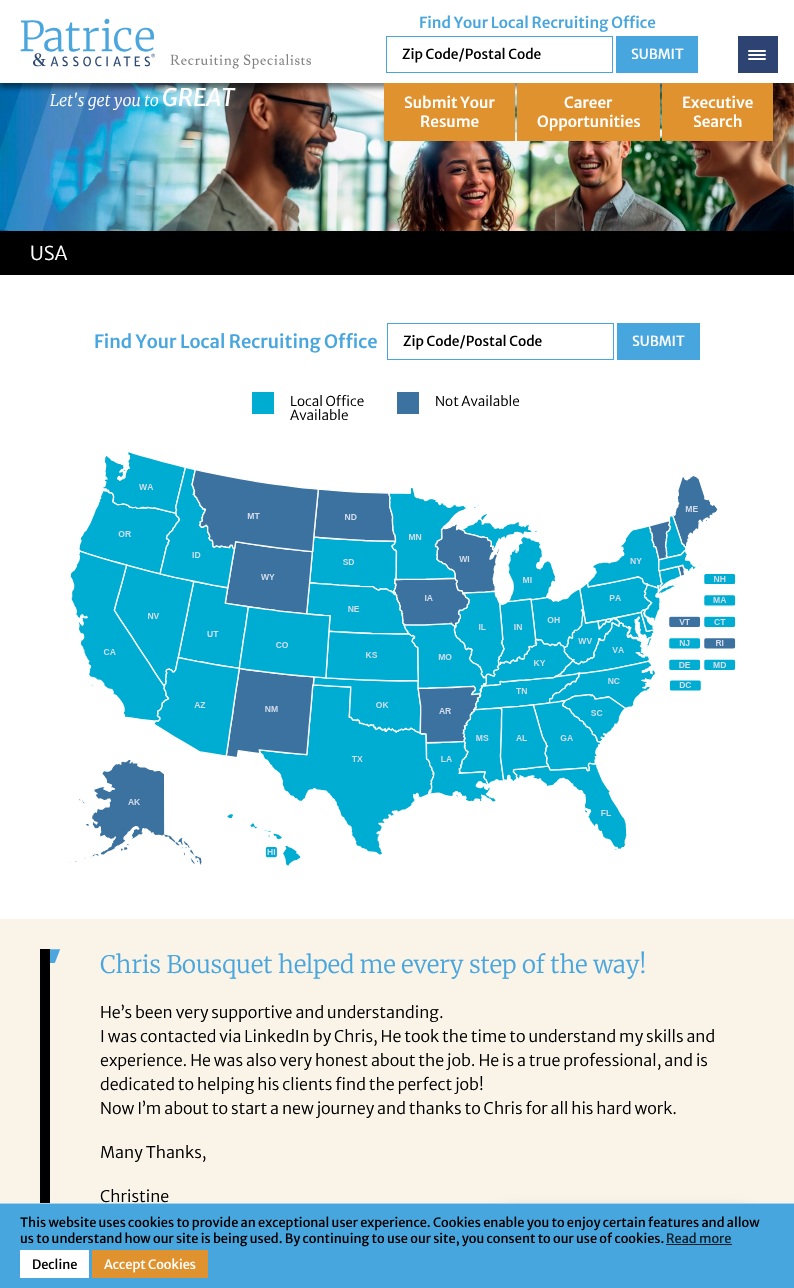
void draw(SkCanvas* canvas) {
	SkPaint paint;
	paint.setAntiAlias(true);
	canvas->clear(0xffffffff);
	canvas->drawImageRect(SkImages::DeferredFromEncodedData(SkData::MakeFromFileName("img2.png")), SkRect::MakeXYWH(0, 83, 794, 148), SkSamplingOptions());
	paint.setColor(0x78000000);
	paint.setMaskFilter(SkMaskFilter::MakeBlur(kNormal_SkBlurStyle, 2.5));
	canvas->drawRect(SkRect::MakeXYWH(0, 5, 794, 83), paint);
	paint.setMaskFilter(nullptr);
	paint.setColor(0xffffffff);
	canvas->drawRect(SkRect::MakeXYWH(0, 0, 794, 83), paint);
	canvas->drawImageRect(SkImages::DeferredFromEncodedData(SkData::MakeFromFileName("img1.png")), SkRect::MakeXYWH(20, 18, 291, 51), SkSamplingOptions());
	SkFont f1(fontMgr->matchFamilyStyle("Merriweather Sans", SkFontStyle(500, SkFontStyle::kNormal_Width, SkFontStyle::kUpright_Slant)), 15.25);
	f1.setSubpixel(true);
	paint.setColor(0xff48a6de);
	canvas->drawString("Find Your Local Recruiting Office", 419, 28, f1, paint);
	paint.setStroke(true);
	paint.setStrokeWidth(1);
	canvas->drawRect(SkRect::MakeXYWH(386.5, 36.5, 226, 36), paint);
	SkFont f2(fontMgr->matchFamilyStyle("Merriweather Sans", SkFontStyle::Normal()), 13.75);
	f2.setSubpixel(true);
	paint.setStroke(false);
	paint.setColor(0xff000000);
	canvas->drawString("Zip Code/Postal Code", 402, 59, f2, paint);
	paint.setColor(0xff48a6de);
	canvas->drawRect(SkRect::MakeXYWH(616, 36, 82, 37), paint);
	paint.setColor(0xffffffff);
	canvas->drawString("SUBMIT", 631, 59, f2, paint);
	paint.setColor(0xff2d4372);
	canvas->drawRect(SkRect::MakeXYWH(738, 36, 40, 37), paint);
	paint.setColor(0xffffffff);
	canvas->drawRoundRect(SkRect::MakeXYWH(748, 50, 18, 2), 1, 1, paint);
	canvas->drawRoundRect(SkRect::MakeXYWH(748, 54, 18, 2), 1, 1, paint);
	canvas->drawRoundRect(SkRect::MakeXYWH(748, 58, 18, 2), 1, 1, paint);
	paint.setColor(0xffe0922f);
	canvas->drawRect(SkRect::MakeXYWH(384, 83, 131, 58), paint);
	paint.setColor(0xffffffff);
	canvas->drawString("Submit Your", 404, 108, f1, paint);
	canvas->drawString("Resume", 420, 127, f1, paint);
	paint.setColor(0xffe0922f);
	canvas->drawRect(SkRect::MakeXYWH(517, 83, 143, 58), paint);
	paint.setColor(0xffffffff);
	canvas->drawString("Career", 564, 108, f1, paint);
	canvas->drawString("Opportunities", 537, 127, f1, paint);
	paint.setColor(0xffe0922f);
	canvas->drawRect(SkRect::MakeXYWH(662, 83, 111, 58), paint);
	paint.setColor(0xffffffff);
	canvas->drawString("Executive", 682, 108, f1, paint);
	canvas->drawString("Search", 693, 127, f1, paint);
	SkFont f3(fontMgr->matchFamilyStyle("Merriweather", SkFontStyle(300, SkFontStyle::kNormal_Width, SkFontStyle::kItalic_Slant)), 16);
	f3.setSubpixel(true);
	canvas->drawString("Let's get you to", 50, 106, f3, paint);
	SkFont f4(fontMgr->matchFamilyStyle("Merriweather Sans", SkFontStyle::Italic()), 24);
	f4.setSubpixel(true);
	canvas->drawString("GREAT", 162, 106, f4, paint);
	paint.setColor(0xff000000);
	canvas->drawRect(SkRect::MakeXYWH(0, 231, 794, 44), paint);
	SkFont f5(fontMgr->matchFamilyStyle("Merriweather Sans", SkFontStyle(300, SkFontStyle::kNormal_Width, SkFontStyle::kUpright_Slant)), 19);
	f5.setSubpixel(true);
	paint.setColor(0xffffffff);
	canvas->drawString("USA", 30, 260, f5, paint);
	SkFont f6(fontMgr->matchFamilyStyle("Merriweather Sans", SkFontStyle(500, SkFontStyle::kNormal_Width, SkFontStyle::kUpright_Slant)), 18.25);
	f6.setSubpixel(true);
	paint.setColor(0xff48a6de);
	canvas->drawString("Find Your Local Recruiting Office", 94, 348, f6, paint);
	paint.setStroke(true);
	canvas->drawRect(SkRect::MakeXYWH(387.5, 323.5, 226, 36), paint);
	paint.setStroke(false);
	paint.setColor(0xff000000);
	canvas->drawString("Zip Code/Postal Code", 403, 346, f2, paint);
	paint.setColor(0xff48a6de);
	canvas->drawRect(SkRect::MakeXYWH(617, 323, 83, 37), paint);
	paint.setColor(0xffffffff);
	canvas->drawString("SUBMIT", 632, 346, f2, paint);
	paint.setColor(0xff00add2);
	canvas->drawRect(SkRect::MakeXYWH(252, 392, 22, 22), paint);
	SkFont f7(fontMgr->matchFamilyStyle("Merriweather Sans", SkFontStyle(300, SkFontStyle::kNormal_Width, SkFontStyle::kUpright_Slant)), 13.5);
	f7.setSubpixel(true);
	paint.setColor(0xff000000);
	canvas->drawString("Local Office", 290, 406, f7, paint);
	canvas->drawString("Available", 290, 420, f7, paint);
	paint.setColor(0xff3b729f);
	canvas->drawRect(SkRect::MakeXYWH(397, 392, 22, 22), paint);
	paint.setColor(0xff000000);
	canvas->drawString("Not Available", 435, 406, f7, paint);
	canvas->drawImageRect(SkImages::DeferredFromEncodedData(SkData::MakeFromFileName("img3.png")), SkRect::MakeXYWH(69, 452, 667, 415), SkSamplingOptions());
	paint.setColor(0xfff9f3e8);
	canvas->drawRect(SkRect::MakeXYWH(0, 919, 794, 284), paint);
	paint.setColor(0xff000000);
	canvas->drawRect(SkRect::MakeXYWH(40, 949, 10, 254), paint);
	canvas->drawImageRect(SkImages::DeferredFromEncodedData(SkData::MakeFromFileName("img4.png")), SkRect::MakeXYWH(50, 949, 10, 14), SkSamplingOptions());
	SkFont f8(fontMgr->matchFamilyStyle("Merriweather", SkFontStyle(300, SkFontStyle::kNormal_Width, SkFontStyle::kUpright_Slant)), 24);
	f8.setSubpixel(true);
	paint.setColor(0xff48a6de);
	canvas->drawString("Chris Bousquet helped me every step of the way!", 100, 973, f8, paint);
	SkFont f9(fontMgr->matchFamilyStyle("Merriweather Sans", SkFontStyle(300, SkFontStyle::kNormal_Width, SkFontStyle::kUpright_Slant)), 16);
	f9.setSubpixel(true);
	paint.setColor(0xff000000);
	canvas->drawString("He’s been very supportive and understanding.", 100, 1018, f9, paint);
	canvas->drawString("I was contacted via LinkedIn by Chris, He took the time to understand my skills and", 100, 1042, f9, paint);
	canvas->drawString("experience. He was also very honest about the job. He is a true professional, and is", 100, 1066, f9, paint);
	canvas->drawString("dedicated to helping his clients find the perfect job!", 100, 1090, f9, paint);
	canvas->drawString("Now I’m about to start a new journey and thanks to Chris for all his hard work.", 100, 1114, f9, paint);
	canvas->drawString("Many Thanks,", 100, 1158, f9, paint);
	canvas->drawString("Christine", 100, 1202, f9, paint);
	paint.setColor(0x26000000);
	paint.setMaskFilter(SkMaskFilter::MakeBlur(kNormal_SkBlurStyle, 6));
	canvas->drawRoundRect(SkRect::MakeXYWH(489, 1208, 273, 52), 26, 26, paint);
	paint.setMaskFilter(nullptr);
	paint.setColor(0xff48a6de);
	canvas->drawRect(SkRect::MakeXYWH(0, 1204, 794, 84), paint);
	paint.setColor(0xffa4d3ef);
	canvas->drawRect(SkRect::MakeXYWH(0, 1203, 794, 1), paint);
	SkFont f10(fontMgr->matchFamilyStyle("Merriweather Sans", SkFontStyle::Normal()), 12.8);
	f10.setSubpixel(true);
	paint.setColor(0xff000000);
	canvas->drawString("This website uses cookies to provide an exceptional user experience. Cookies enable you to enjoy certain features and allow", 20, 1227, f10, paint);
	canvas->drawString("us to understand how our site is being used. By continuing to use our site, you consent to our use of cookies.", 20, 1243, f10, paint);
	paint.setColor(0xff0e212c);
	canvas->drawString("Read more", 666, 1243, f10, paint);
	canvas->drawRect(SkRect::MakeXYWH(666, 1244, 66, 1), paint);
	paint.setColor(0xffffffff);
	canvas->drawRect(SkRect::MakeXYWH(20, 1250, 69, 28), paint);
	paint.setColor(0xff000000);
	canvas->drawString("Decline", 32, 1269, f10, paint);
	paint.setColor(0xffe0922f);
	canvas->drawRect(SkRect::MakeXYWH(92, 1250, 116, 28), paint);
	paint.setColor(0xffffffff);
	canvas->drawString("Accept Cookies", 104, 1269, f10, paint);
}
